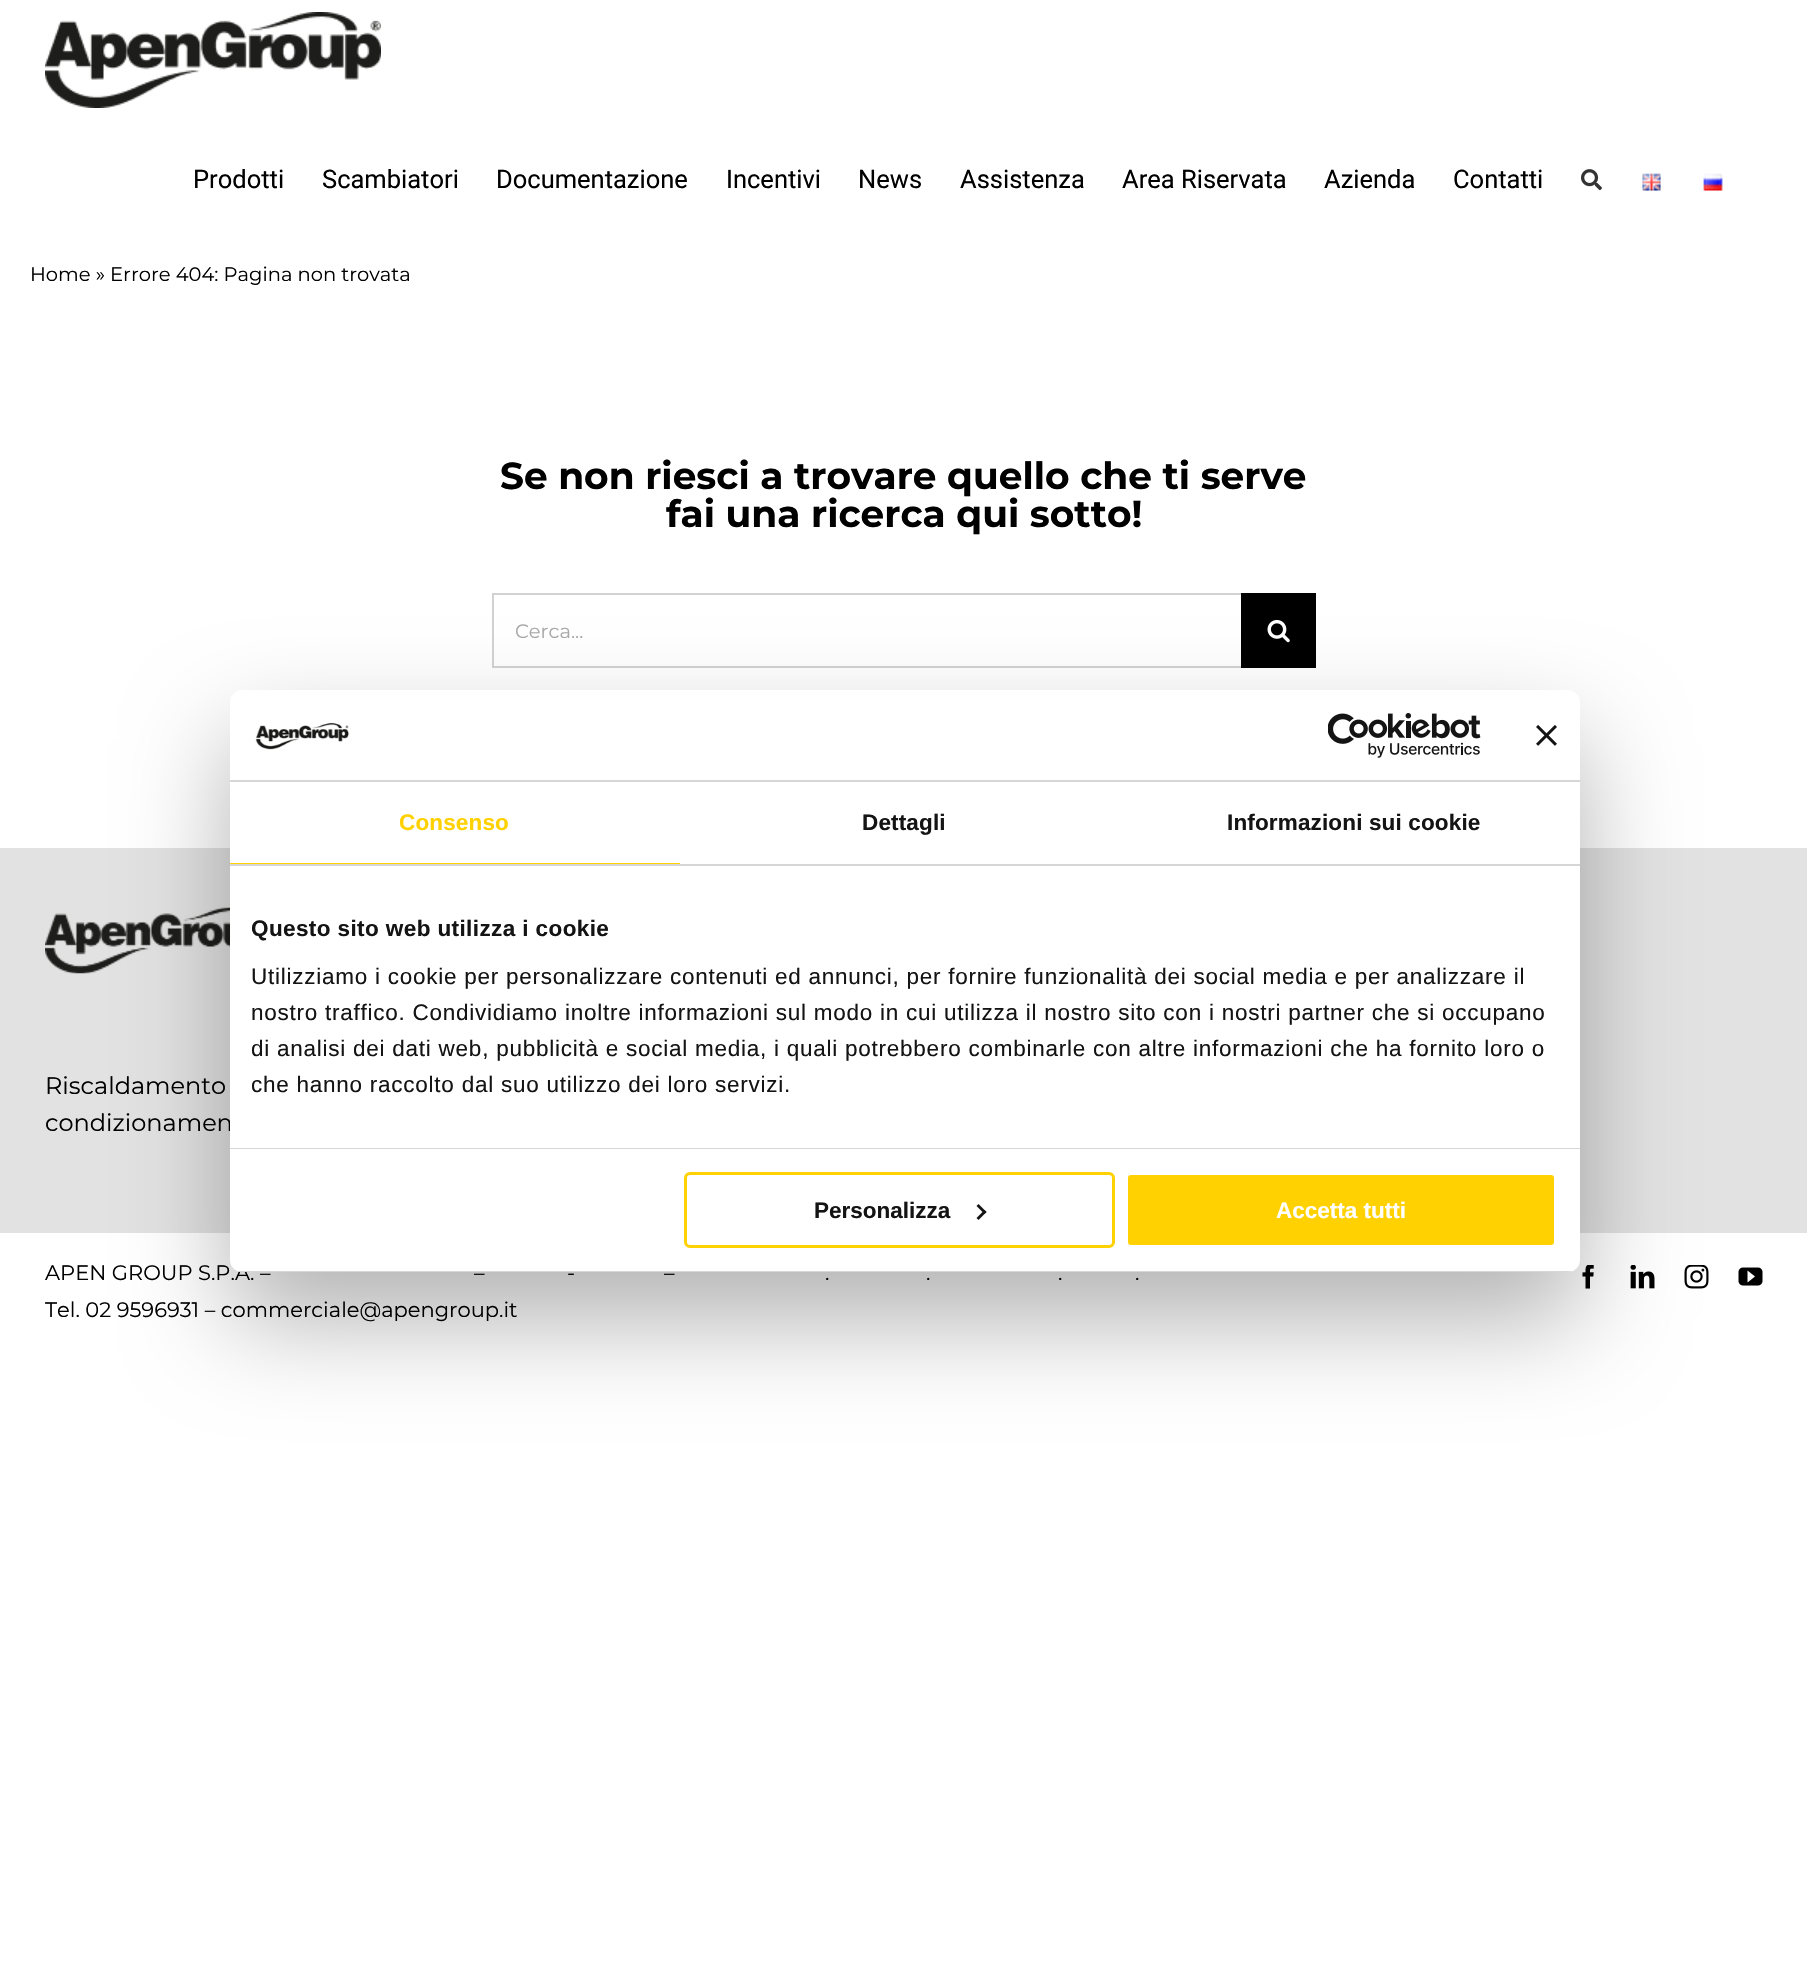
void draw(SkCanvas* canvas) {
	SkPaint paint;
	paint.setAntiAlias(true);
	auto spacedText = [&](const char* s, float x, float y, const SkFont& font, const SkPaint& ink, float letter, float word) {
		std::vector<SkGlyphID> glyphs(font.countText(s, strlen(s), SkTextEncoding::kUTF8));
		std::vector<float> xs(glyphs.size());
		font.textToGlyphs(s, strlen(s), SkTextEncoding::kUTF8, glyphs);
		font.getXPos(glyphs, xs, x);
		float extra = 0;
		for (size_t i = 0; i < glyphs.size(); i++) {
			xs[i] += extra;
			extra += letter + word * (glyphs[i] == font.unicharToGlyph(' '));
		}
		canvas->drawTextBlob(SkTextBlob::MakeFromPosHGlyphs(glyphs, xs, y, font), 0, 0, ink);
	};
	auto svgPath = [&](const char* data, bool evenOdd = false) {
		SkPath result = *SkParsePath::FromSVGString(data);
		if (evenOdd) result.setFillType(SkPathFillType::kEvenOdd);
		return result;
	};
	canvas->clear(0xffffffff);
	canvas->drawImageRect(SkImages::DeferredFromEncodedData(SkData::MakeFromFileName("img1.png")), SkRect::MakeXYWH(45, 12, 336, 96), SkSamplingOptions());
	SkFont f1(fontMgr->matchFamilyStyle("Roboto", SkFontStyle::Normal()), 25.5);
	f1.setSubpixel(true);
	paint.setColor(0xff000000);
	canvas->drawString("Prodotti", 193, 188, f1, paint);
	canvas->drawString("Scambiatori", 322, 188, f1, paint);
	canvas->drawString("Documentazione", 496, 188, f1, paint);
	canvas->drawString("Incentivi", 726, 188, f1, paint);
	canvas->drawString("News", 858, 188, f1, paint);
	canvas->drawString("Assistenza", 960, 188, f1, paint);
	canvas->drawString("Area Riservata", 1122, 188, f1, paint);
	canvas->drawString("Azienda", 1324, 188, f1, paint);
	canvas->drawString("Contatti", 1453, 188, f1, paint);
	canvas->drawImageRect(SkImages::DeferredFromEncodedData(SkData::MakeFromFileName("img2.png")), SkRect::MakeXYWH(1581, 169, 21, 22), SkSamplingOptions());
	canvas->drawImageRect(SkImages::DeferredFromEncodedData(SkData::MakeFromFileName("img3.png")), SkRect::MakeXYWH(1642, 173, 19, 18), SkSamplingOptions());
	canvas->drawImageRect(SkImages::DeferredFromEncodedData(SkData::MakeFromFileName("img4.png")), SkRect::MakeXYWH(1703, 173, 20, 18), SkSamplingOptions());
	SkFont f2(fontMgr->matchFamilyStyle("Montserrat", SkFontStyle::Normal()), 19.5);
	f2.setSubpixel(true);
	canvas->drawString("Home » Errore 404: Pagina non trovata", 30, 281, f2, paint);
	SkFont f3(fontMgr->matchFamilyStyle("Montserrat", SkFontStyle::Bold()), 37.5);
	f3.setSubpixel(true);
	canvas->drawString("Se non riesci a trovare quello che ti serve", 500, 489, f3, paint);
	canvas->drawString("fai una ricerca qui sotto!", 666, 527, f3, paint);
	paint.setColor(0xffd2d2d2);
	canvas->drawRect(SkRect::MakeXYWH(492, 593, 749, 2), paint);
	canvas->drawRect(SkRect::MakeXYWH(492, 666, 749, 2), paint);
	canvas->drawRect(SkRect::MakeXYWH(492, 593, 2, 75), paint);
	paint.setColor(0xffaaa9a9);
	canvas->drawString("Cerca...", 515, 638, f2, paint);
	paint.setColor(0xff000000);
	canvas->drawRect(SkRect::MakeXYWH(1241, 593, 75, 75), paint);
	canvas->drawImageRect(SkImages::DeferredFromEncodedData(SkData::MakeFromFileName("img5.png")), SkRect::MakeXYWH(1267, 619, 23, 24), SkSamplingOptions());
	paint.setColor(0xffe2e2e2);
	canvas->drawRect(SkRect::MakeXYWH(0, 848, 1807, 385), paint);
	canvas->drawImageRect(SkImages::DeferredFromEncodedData(SkData::MakeFromFileName("img6.png")), SkRect::MakeXYWH(45, 907, 185, 67), SkSamplingOptions());
	SkFont f4(fontMgr->matchFamilyStyle("Montserrat", SkFontStyle::Normal()), 24);
	f4.setSubpixel(true);
	paint.setColor(0xff000000);
	canvas->drawString("Riscaldamento", 45, 1094, f4, paint);
	canvas->drawString("condizionamen", 45, 1131, f4, paint);
	SkFont f5(fontMgr->matchFamilyStyle("Montserrat", SkFontStyle::Normal()), 21);
	f5.setSubpixel(true);
	canvas->drawString("APEN GROUP S.P.A. –", 45, 1280, f5, paint);
	canvas->drawString("–", 474, 1280, f5, paint);
	canvas->drawString("-", 567, 1280, f5, paint);
	canvas->drawString("–", 664, 1280, f5, paint);
	canvas->drawString(".", 825, 1280, f5, paint);
	canvas->drawString(".", 926, 1280, f5, paint);
	canvas->drawString(".", 1058, 1280, f5, paint);
	canvas->drawString(".", 1135, 1280, f5, paint);
	canvas->drawString("Tel. 02 9596931 – commerciale@apengroup.it", 45, 1317, f5, paint);
	canvas->drawImageRect(SkImages::DeferredFromEncodedData(SkData::MakeFromFileName("img7.png")), SkRect::MakeXYWH(1582, 1265, 12, 24), SkSamplingOptions());
	canvas->drawImageRect(SkImages::DeferredFromEncodedData(SkData::MakeFromFileName("img8.png")), SkRect::MakeXYWH(1630, 1265, 25, 24), SkSamplingOptions());
	canvas->drawImageRect(SkImages::DeferredFromEncodedData(SkData::MakeFromFileName("img9.png")), SkRect::MakeXYWH(1684, 1265, 25, 24), SkSamplingOptions());
	canvas->drawImageRect(SkImages::DeferredFromEncodedData(SkData::MakeFromFileName("img10.png")), SkRect::MakeXYWH(1738, 1267, 25, 19), SkSamplingOptions());
	paint.setColor(0x4d000000);
	paint.setMaskFilter(SkMaskFilter::MakeBlur(kNormal_SkBlurStyle, 51));
	canvas->drawRoundRect(SkRect::MakeXYWH(230, 738, 1350, 582), 12, 12, paint);
	paint.setMaskFilter(nullptr);
	paint.setColor(0xffffffff);
	canvas->drawRoundRect(SkRect::MakeXYWH(230, 690, 1350, 582), 12, 12, paint);
	paint.setColor(0xffd6d6d6);
	canvas->drawRect(SkRect::MakeXYWH(230, 780, 1350, 2), paint);
	canvas->drawImageRect(SkImages::DeferredFromEncodedData(SkData::MakeFromFileName("img11.png")), SkRect::MakeXYWH(255, 722, 95, 28), SkSamplingOptions());
	canvas->drawImageRect(SkImages::DeferredFromEncodedData(SkData::MakeFromFileName("img12.png")), SkRect::MakeXYWH(1328, 713, 153, 45), SkSamplingOptions());
	canvas->drawImageRect(SkImages::DeferredFromEncodedData(SkData::MakeFromFileName("img13.png")), SkRect::MakeXYWH(1536, 725, 21, 21), SkSamplingOptions());
	canvas->drawRect(SkRect::MakeXYWH(230, 864, 1350, 2), paint);
	paint.setColor(0xffffd100);
	canvas->drawRect(SkRect::MakeXYWH(230, 863, 450, 1), paint);
	SkFont f6(fontMgr->matchFamilyStyle("Liberation Sans", SkFontStyle::Bold()), 22.5);
	f6.setSubpixel(true);
	spacedText("Consenso", 399, 830, f6, paint, 0.15, 0);
	paint.setColor(0xff141414);
	spacedText("Dettagli", 862, 830, f6, paint, 0.15, 0);
	spacedText("Informazioni sui cookie", 1227, 830, f6, paint, 0.15, 0);
	paint.setColor(0xffd6d6d6);
	canvas->drawRect(SkRect::MakeXYWH(230, 1148, 1350, 1), paint);
	paint.setColor(0xff141414);
	spacedText("Questo sito web utilizza i cookie", 251, 936, f6, paint, 0.4, 0);
	SkFont f7(fontMgr->matchFamilyStyle("Liberation Sans", SkFontStyle::Normal()), 22.5);
	f7.setSubpixel(true);
	spacedText("Utilizziamo i cookie per personalizzare contenuti ed annunci, per fornire funzionalità dei social media e per analizzare il", 251, 984, f7, paint, 0.75, 0);
	spacedText("nostro traffico. Condividiamo inoltre informazioni sul modo in cui utilizza il nostro sito con i nostri partner che si occupano", 251, 1020, f7, paint, 0.75, 0);
	spacedText("di analisi dei dati web, pubblicità e social media, i quali potrebbero combinarle con altre informazioni che ha fornito loro o", 251, 1056, f7, paint, 0.75, 0);
	spacedText("che hanno raccolto dal suo utilizzo dei loro servizi.", 251, 1092, f7, paint, 0.75, 0);
	canvas->save();
	canvas->clipPath(svgPath("M242 690H1568C1574.5 690 1580 695.5 1580 702V1260C1580 1266.5 1574.5 1272 1568 1272H242C235.5 1272 230 1266.5 230 1260V702C230 695.5 235.5 690 242 690Z"), true);
	paint.setColor(0xffd6d6d6);
	canvas->drawRect(SkRect::MakeXYWH(230, 1271, 1350, 1), paint);
	canvas->restore();
	paint.setStroke(true);
	paint.setStrokeWidth(3);
	paint.setColor(0xffffd100);
	canvas->drawRoundRect(SkRect::MakeXYWH(685.5, 1173.5, 428, 73), 4.5, 4.5, paint);
	paint.setStroke(false);
	paint.setColor(0xff141414);
	canvas->drawString("Personalizza", 814, 1218, f6, paint);
	canvas->drawPath(svgPath("M978.5 1204L986.5 1212L984.5 1214L976.5 1206Z"), paint);
	canvas->drawPath(svgPath("M984.5 1210L986.5 1212L978.5 1220L976.5 1218Z"), paint);
	paint.setColor(0xffffd100);
	canvas->drawRoundRect(SkRect::MakeXYWH(1126.5, 1173.5, 429, 73), 4.5, 4.5, paint);
	paint.setStroke(true);
	paint.setColor(0xffffffff);
	canvas->drawRoundRect(SkRect::MakeXYWH(1126.5, 1173.5, 429, 73), 4.5, 4.5, paint);
	paint.setStroke(false);
	canvas->drawString("Accetta tutti", 1276, 1218, f6, paint);
}
